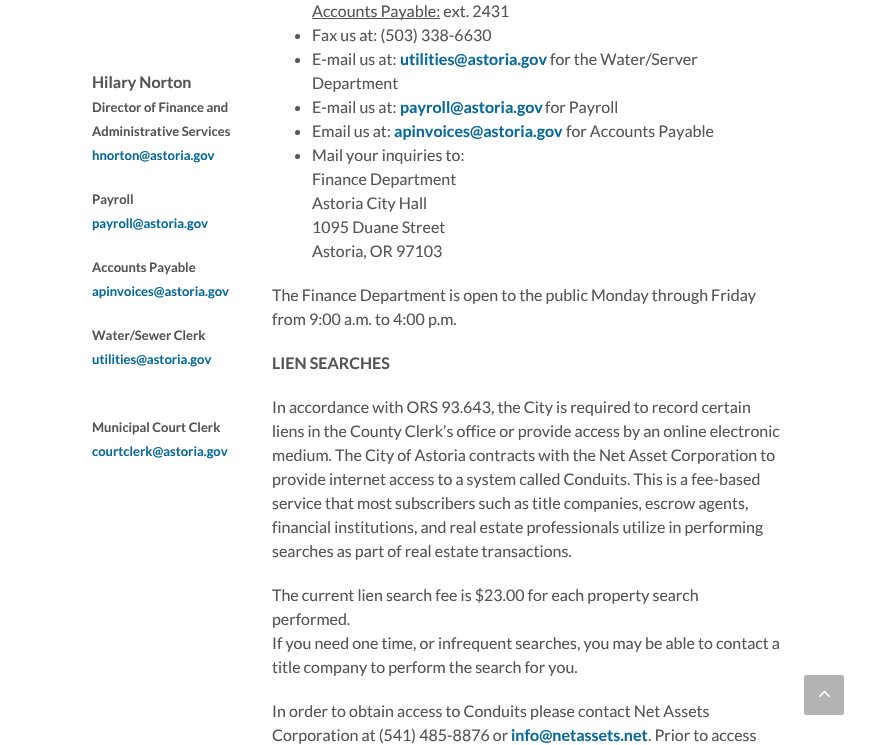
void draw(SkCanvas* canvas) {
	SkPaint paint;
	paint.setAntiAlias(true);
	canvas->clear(0xffffffff);
	SkFont f1(fontMgr->matchFamilyStyle("Lato", SkFontStyle::Bold()), 16);
	f1.setSubpixel(true);
	paint.setColor(0xff555555);
	canvas->drawString("Hilary Norton", 92, 88, f1, paint);
	SkFont f2(fontMgr->matchFamilyStyle("Lato", SkFontStyle::Bold()), 13);
	f2.setSubpixel(true);
	canvas->drawString("Director of Finance and", 92, 112, f2, paint);
	canvas->drawString("Administrative Services", 92, 136, f2, paint);
	paint.setColor(0xff05699b);
	canvas->drawString("hnorton@astoria.gov", 92, 160, f2, paint);
	paint.setColor(0xff555555);
	canvas->drawString("Payroll", 92, 204, f2, paint);
	paint.setColor(0xff05699b);
	canvas->drawString("payroll@astoria.gov", 92, 228, f2, paint);
	paint.setColor(0xff555555);
	canvas->drawString("Accounts Payable", 92, 272, f2, paint);
	paint.setColor(0xff05699b);
	canvas->drawString("apinvoices@astoria.gov", 92, 296, f2, paint);
	paint.setColor(0xff555555);
	canvas->drawString("Water/Sewer Clerk", 92, 340, f2, paint);
	paint.setColor(0xff05699b);
	canvas->drawString("utilities@astoria.gov", 92, 364, f2, paint);
	paint.setColor(0xff555555);
	canvas->drawString("Municipal Court Clerk", 92, 432, f2, paint);
	paint.setColor(0xff05699b);
	canvas->drawString("courtclerk@astoria.gov", 92, 456, f2, paint);
	paint.setColor(0xff555555);
	canvas->drawRect(SkRect::MakeXYWH(312, 18, 128, 1), paint);
	SkFont f3(fontMgr->matchFamilyStyle("Lato", SkFontStyle::Normal()), 16);
	f3.setSubpixel(true);
	canvas->drawString("Accounts Payable: ext. 2431", 312, 17, f3, paint);
	canvas->drawCircle(297.5, 36.5, 2.5, paint);
	canvas->drawString("Fax us at: (503) 338-6630", 312, 41, f3, paint);
	canvas->drawCircle(297.5, 60.5, 2.5, paint);
	canvas->drawString("E-mail us at:", 312, 65, f3, paint);
	paint.setColor(0xff05699b);
	canvas->drawString("utilities@astoria.gov", 400, 65, f1, paint);
	paint.setColor(0xff555555);
	canvas->drawString("for the Water/Server", 550, 65, f3, paint);
	canvas->drawString("Department", 312, 89, f3, paint);
	canvas->drawCircle(297.5, 108.5, 2.5, paint);
	canvas->drawString("E-mail us at:", 312, 113, f3, paint);
	paint.setColor(0xff05699b);
	canvas->drawString("payroll@astoria.gov", 400, 113, f1, paint);
	paint.setColor(0xff555555);
	canvas->drawString("for Payroll", 545, 113, f3, paint);
	canvas->drawCircle(297.5, 132.5, 2.5, paint);
	canvas->drawString("Email us at:", 312, 137, f3, paint);
	paint.setColor(0xff05699b);
	canvas->drawString("apinvoices@astoria.gov", 394, 137, f1, paint);
	paint.setColor(0xff555555);
	canvas->drawString("for Accounts Payable", 566, 137, f3, paint);
	canvas->drawCircle(297.5, 156.5, 2.5, paint);
	canvas->drawString("Mail your inquiries to:", 312, 161, f3, paint);
	canvas->drawString("Finance Department", 312, 185, f3, paint);
	canvas->drawString("Astoria City Hall", 312, 209, f3, paint);
	canvas->drawString("1095 Duane Street", 312, 233, f3, paint);
	canvas->drawString("Astoria, OR 97103", 312, 257, f3, paint);
	canvas->drawString("The Finance Department is open to the public Monday through Friday", 272, 301, f3, paint);
	canvas->drawString("from 9:00 a.m. to 4:00 p.m.", 272, 325, f3, paint);
	canvas->drawString("LIEN SEARCHES", 272, 369, f1, paint);
	canvas->drawString("In accordance with ORS 93.643, the City is required to record certain", 272, 413, f3, paint);
	canvas->drawString("liens in the County Clerk’s office or provide access by an online electronic", 272, 437, f3, paint);
	canvas->drawString("medium. The City of Astoria contracts with the Net Asset Corporation to", 272, 461, f3, paint);
	canvas->drawString("provide internet access to a system called Conduits. This is a fee-based", 272, 485, f3, paint);
	canvas->drawString("service that most subscribers such as title companies, escrow agents,", 272, 509, f3, paint);
	canvas->drawString("financial institutions, and real estate professionals utilize in performing", 272, 533, f3, paint);
	canvas->drawString("searches as part of real estate transactions.", 272, 557, f3, paint);
	canvas->drawString("The current lien search fee is $23.00 for each property search", 272, 601, f3, paint);
	canvas->drawString("performed.", 272, 625, f3, paint);
	canvas->drawString("If you need one time, or infrequent searches, you may be able to contact a", 272, 649, f3, paint);
	canvas->drawString("title company to perform the search for you.", 272, 673, f3, paint);
	canvas->drawString("In order to obtain access to Conduits please contact Net Assets", 272, 717, f3, paint);
	canvas->drawString("Corporation at (541) 485-8876 or", 272, 741, f3, paint);
	paint.setColor(0xff05699b);
	canvas->drawString("info@netassets.net", 511, 741, f1, paint);
	paint.setColor(0xff555555);
	canvas->drawString(". Prior to access", 648, 741, f3, paint);
	paint.setColor(0xffb3b3b3);
	canvas->drawRoundRect(SkRect::MakeXYWH(804, 675, 40, 40), 2, 2, paint);
	canvas->drawImageRect(SkImages::DeferredFromEncodedData(SkData::MakeFromFileName("img1.png")), SkRect::MakeXYWH(819, 690, 11, 7), SkSamplingOptions());
}
